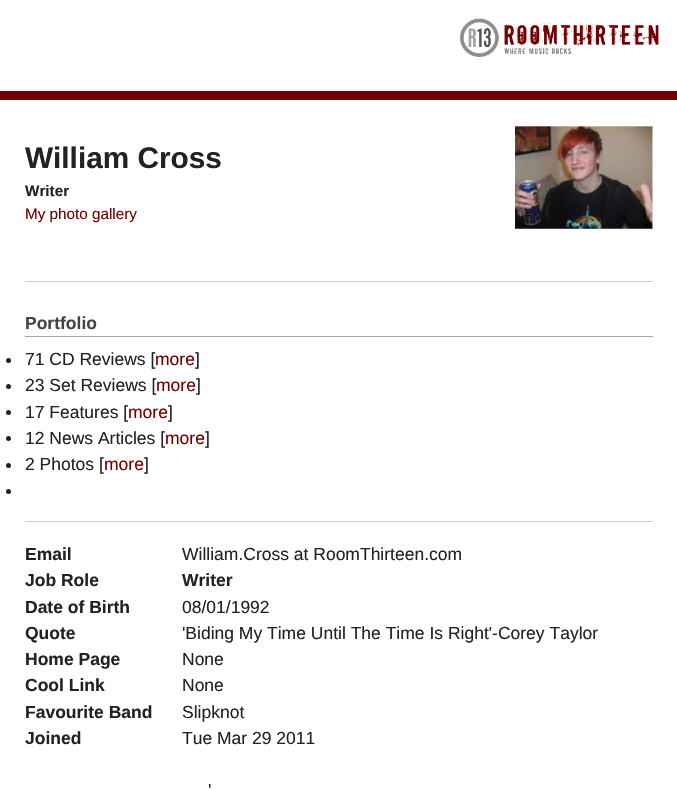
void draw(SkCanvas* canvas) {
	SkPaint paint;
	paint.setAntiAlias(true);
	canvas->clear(0xff720000);
	paint.setColor(0xffffffff);
	canvas->drawRect(SkRect::MakeXYWH(0, 0, 677, 91), paint);
	canvas->drawImageRect(SkImages::DeferredFromEncodedData(SkData::MakeFromFileName("img1.png")), SkRect::MakeXYWH(460, 18, 199, 39), SkSamplingOptions());
	canvas->drawRect(SkRect::MakeXYWH(0, 100, 677, 690), paint);
	SkFont f1(fontMgr->matchFamilyStyle("Liberation Sans", SkFontStyle::Bold()), 29.75);
	f1.setSubpixel(true);
	paint.setColor(0xff222222);
	canvas->drawString("William Cross", 25, 168, f1, paint);
	canvas->drawImageRect(SkImages::DeferredFromEncodedData(SkData::MakeFromFileName("img2.png")), SkRect::MakeXYWH(515, 126, 138, 103), SkSamplingOptions());
	SkFont f2(fontMgr->matchFamilyStyle("Liberation Sans", SkFontStyle::Bold()), 15.25);
	f2.setSubpixel(true);
	canvas->drawString("Writer", 25, 196, f2, paint);
	SkFont f3(fontMgr->matchFamilyStyle("Liberation Sans", SkFontStyle::Normal()), 15.25);
	f3.setSubpixel(true);
	paint.setColor(0xff720000);
	canvas->drawString("My photo gallery", 25, 219, f3, paint);
	paint.setColor(0xffcdcfcf);
	canvas->drawRect(SkRect::MakeXYWH(25, 281, 628, 1), paint);
	paint.setColor(0xffa5a5a5);
	canvas->drawRect(SkRect::MakeXYWH(25, 336, 628, 1), paint);
	SkFont f4(fontMgr->matchFamilyStyle("Liberation Sans", SkFontStyle::Bold()), 17.5);
	f4.setSubpixel(true);
	paint.setColor(0xff444444);
	canvas->drawString("Portfolio", 25, 329, f4, paint);
	paint.setColor(0xff222222);
	canvas->drawCircle(8.5, 360.5, 2.5, paint);
	SkFont f5(fontMgr->matchFamilyStyle("Liberation Sans", SkFontStyle::Normal()), 17.5);
	f5.setSubpixel(true);
	canvas->drawString("71 CD Reviews [", 25, 365, f5, paint);
	paint.setColor(0xff720000);
	canvas->drawString("more", 155, 365, f5, paint);
	paint.setColor(0xff222222);
	canvas->drawString("]", 195, 365, f5, paint);
	canvas->drawCircle(8.5, 386.5, 2.5, paint);
	canvas->drawString("23 Set Reviews [", 25, 391, f5, paint);
	paint.setColor(0xff720000);
	canvas->drawString("more", 156, 391, f5, paint);
	paint.setColor(0xff222222);
	canvas->drawString("]", 196, 391, f5, paint);
	canvas->drawCircle(8.5, 412.5, 2.5, paint);
	canvas->drawString("17 Features [", 25, 418, f5, paint);
	paint.setColor(0xff720000);
	canvas->drawString("more", 128, 418, f5, paint);
	paint.setColor(0xff222222);
	canvas->drawString("]", 168, 418, f5, paint);
	canvas->drawCircle(8.5, 438.5, 2.5, paint);
	canvas->drawString("12 News Articles [", 25, 444, f5, paint);
	paint.setColor(0xff720000);
	canvas->drawString("more", 165, 444, f5, paint);
	paint.setColor(0xff222222);
	canvas->drawString("]", 205, 444, f5, paint);
	canvas->drawCircle(8.5, 465.5, 2.5, paint);
	canvas->drawString("2 Photos [", 25, 470, f5, paint);
	paint.setColor(0xff720000);
	canvas->drawString("more", 104, 470, f5, paint);
	paint.setColor(0xff222222);
	canvas->drawString("]", 144, 470, f5, paint);
	canvas->drawCircle(8.5, 491.5, 2.5, paint);
	paint.setColor(0xffcdcfcf);
	canvas->drawRect(SkRect::MakeXYWH(25, 521, 628, 1), paint);
	paint.setColor(0xff222222);
	canvas->drawString("Email", 25, 560, f4, paint);
	canvas->drawString("William.Cross at RoomThirteen.com", 182, 560, f5, paint);
	canvas->drawString("Job Role", 25, 586, f4, paint);
	canvas->drawString("Writer", 182, 586, f4, paint);
	canvas->drawString("Date of Birth", 25, 613, f4, paint);
	canvas->drawString("08/01/1992", 182, 613, f5, paint);
	canvas->drawString("Quote", 25, 639, f4, paint);
	canvas->drawString("'Biding My Time Until The Time Is Right'-Corey Taylor", 182, 639, f5, paint);
	canvas->drawString("Home Page", 25, 665, f4, paint);
	canvas->drawString("None", 182, 665, f5, paint);
	canvas->drawString("Cool Link", 25, 691, f4, paint);
	canvas->drawString("None", 182, 691, f5, paint);
	canvas->drawString("Favourite Band", 25, 718, f4, paint);
	canvas->drawString("Slipknot", 182, 718, f5, paint);
	canvas->drawString("Joined", 25, 744, f4, paint);
	canvas->drawString("Tue Mar 29 2011", 182, 744, f5, paint);
	canvas->drawString("'", 208, 796, f5, paint);
}
